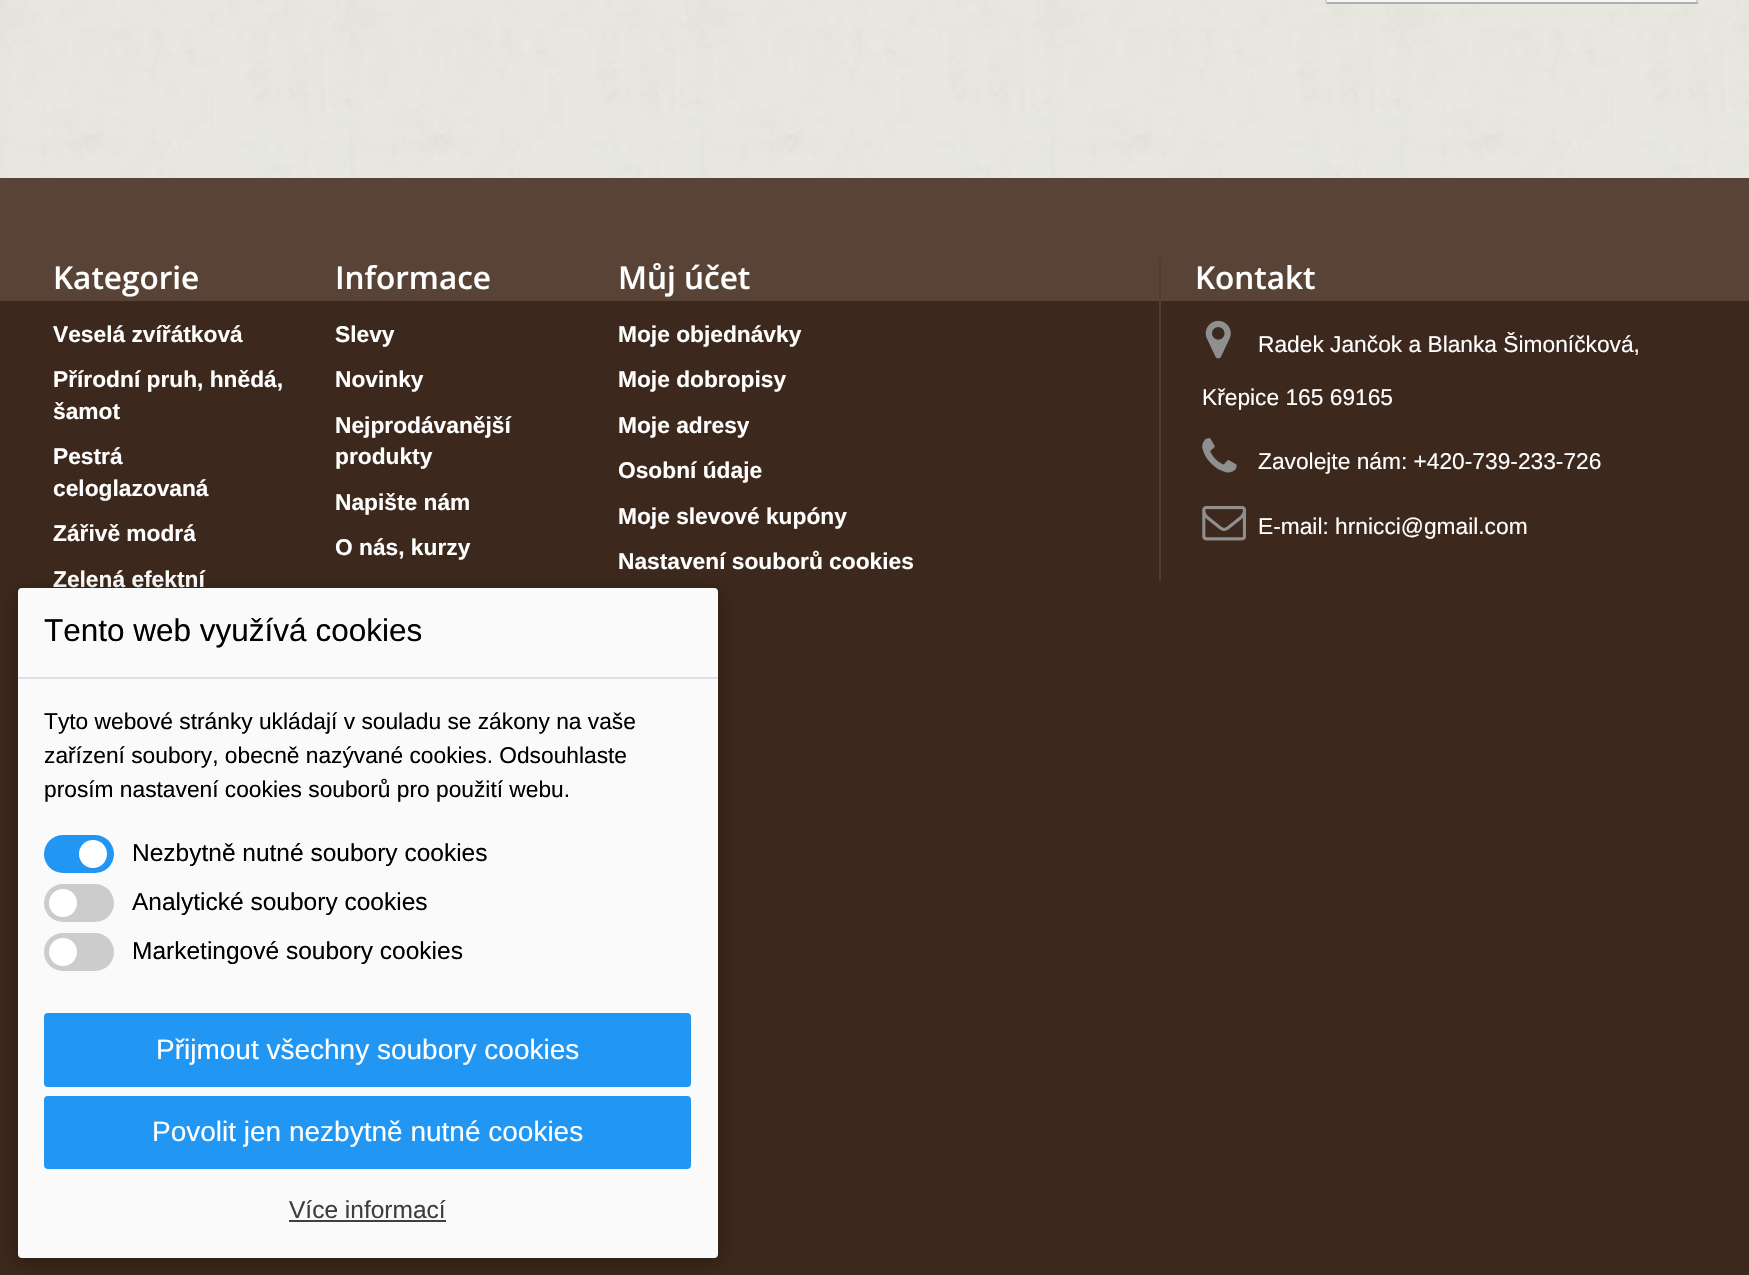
void draw(SkCanvas* canvas) {
	SkPaint paint;
	paint.setAntiAlias(true);
	canvas->clear(0xff3c281c);
	canvas->drawImageRect(SkImages::DeferredFromEncodedData(SkData::MakeFromFileName("img1.png")), SkRect::MakeXYWH(0, 0, 1749, 178), SkSamplingOptions());
	paint.setColor(0xfff6f6f6);
	canvas->drawRect(SkRect::MakeXYWH(1325, 0, 373, 2), paint);
	paint.setColor(0xffd2d0d0);
	canvas->drawRect(SkRect::MakeXYWH(1696, 0, 2, 4), paint);
	paint.setColor(0xffb0afaf);
	canvas->drawRect(SkRect::MakeXYWH(1325, 2, 373, 2), paint);
	paint.setColor(0xffd2d0d0);
	canvas->drawRect(SkRect::MakeXYWH(1325, 0, 2, 4), paint);
	paint.setColor(0xff584336);
	canvas->drawRect(SkRect::MakeXYWH(0, 178, 1749, 123), paint);
	SkFont f1(fontMgr->matchFamilyStyle("Open Sans", SkFontStyle(600, SkFontStyle::kNormal_Width, SkFontStyle::kUpright_Slant)), 31.5);
	f1.setSubpixel(true);
	paint.setColor(0xffffffff);
	canvas->drawString("Kategorie", 53, 289, f1, paint);
	SkFont f2(fontMgr->matchFamilyStyle("Liberation Sans", SkFontStyle::Bold()), 22.75);
	f2.setSubpixel(true);
	canvas->drawString("Veselá zvířátková", 53, 342, f2, paint);
	canvas->drawString("Přírodní pruh, hnědá,", 53, 387, f2, paint);
	canvas->drawString("šamot", 53, 419, f2, paint);
	canvas->drawString("Pestrá", 53, 464, f2, paint);
	canvas->drawString("celoglazovaná", 53, 496, f2, paint);
	canvas->drawString("Zářivě modrá", 53, 541, f2, paint);
	canvas->drawString("Zelená efektní", 53, 587, f2, paint);
	canvas->drawString("Informace", 335, 289, f1, paint);
	canvas->drawString("Slevy", 335, 342, f2, paint);
	canvas->drawString("Novinky", 335, 387, f2, paint);
	canvas->drawString("Nejprodávanější", 335, 433, f2, paint);
	canvas->drawString("produkty", 335, 464, f2, paint);
	canvas->drawString("Napište nám", 335, 510, f2, paint);
	canvas->drawString("O nás, kurzy", 335, 555, f2, paint);
	canvas->drawString("Můj účet", 618, 289, f1, paint);
	canvas->drawString("Moje objednávky", 618, 342, f2, paint);
	canvas->drawString("Moje dobropisy", 618, 387, f2, paint);
	canvas->drawString("Moje adresy", 618, 433, f2, paint);
	canvas->drawString("Osobní údaje", 618, 478, f2, paint);
	canvas->drawString("Moje slevové kupóny", 618, 524, f2, paint);
	canvas->drawString("Nastavení souborů cookies", 618, 569, f2, paint);
	paint.setColor(0xff503e33);
	canvas->drawRect(SkRect::MakeXYWH(1159, 257, 2, 324), paint);
	paint.setColor(0xffffffff);
	canvas->drawString("Kontakt", 1195, 289, f1, paint);
	canvas->drawImageRect(SkImages::DeferredFromEncodedData(SkData::MakeFromFileName("img2.png")), SkRect::MakeXYWH(1205, 320, 26, 39), SkSamplingOptions());
	SkFont f3(fontMgr->matchFamilyStyle("Liberation Sans", SkFontStyle::Normal()), 22.75);
	f3.setSubpixel(true);
	canvas->drawString("Radek Jančok a Blanka Šimoníčková,", 1258, 352, f3, paint);
	canvas->drawString("Křepice 165 69165", 1202, 405, f3, paint);
	canvas->drawImageRect(SkImages::DeferredFromEncodedData(SkData::MakeFromFileName("img3.png")), SkRect::MakeXYWH(1202, 438, 35, 35), SkSamplingOptions());
	canvas->drawString("Zavolejte nám: +420-739-233-726", 1258, 469, f3, paint);
	canvas->drawImageRect(SkImages::DeferredFromEncodedData(SkData::MakeFromFileName("img4.png")), SkRect::MakeXYWH(1202, 506, 44, 35), SkSamplingOptions());
	canvas->drawString("E-mail: hrnicci@gmail.com", 1258, 534, f3, paint);
	paint.setColor(0x4d000000);
	paint.setMaskFilter(SkMaskFilter::MakeBlur(kNormal_SkBlurStyle, 9));
	canvas->drawRoundRect(SkRect::MakeXYWH(18, 592, 700, 670), 4, 4, paint);
	paint.setMaskFilter(nullptr);
	paint.setColor(0xfffafafa);
	canvas->drawRoundRect(SkRect::MakeXYWH(18, 588, 700, 670), 4, 4, paint);
	paint.setColor(0xffdee2e6);
	canvas->drawRect(SkRect::MakeXYWH(18, 677, 700, 2), paint);
	SkFont f4(fontMgr->matchFamilyStyle("Liberation Sans", SkFontStyle::Normal()), 31.5);
	f4.setSubpixel(true);
	paint.setColor(0xff000000);
	canvas->drawString("Tento web využívá cookies", 44, 641, f4, paint);
	canvas->drawString("Tyto webové stránky ukládají v souladu se zákony na vaše", 44, 729, f3, paint);
	canvas->drawString("zařízení soubory, obecně nazývané cookies. Odsouhlaste", 44, 763, f3, paint);
	canvas->drawString("prosím nastavení cookies souborů pro použití webu.", 44, 797, f3, paint);
	paint.setColor(0xff2196f3);
	canvas->drawRoundRect(SkRect::MakeXYWH(44, 835, 70, 38), 19, 19, paint);
	paint.setColor(0xffffffff);
	canvas->drawCircle(93, 854, 14, paint);
	SkFont f5(fontMgr->matchFamilyStyle("Liberation Sans", SkFontStyle::Normal()), 24.5);
	f5.setSubpixel(true);
	paint.setColor(0xff000000);
	canvas->drawString("Nezbytně nutné soubory cookies", 132, 861, f5, paint);
	paint.setColor(0xffcccccc);
	canvas->drawRoundRect(SkRect::MakeXYWH(44, 884, 70, 38), 19, 19, paint);
	paint.setColor(0xffffffff);
	canvas->drawCircle(63, 903, 14, paint);
	paint.setColor(0xff000000);
	canvas->drawString("Analytické soubory cookies", 132, 910, f5, paint);
	paint.setColor(0xffcccccc);
	canvas->drawRoundRect(SkRect::MakeXYWH(44, 933, 70, 38), 19, 19, paint);
	paint.setColor(0xffffffff);
	canvas->drawCircle(63, 952, 14, paint);
	paint.setColor(0xff000000);
	canvas->drawString("Marketingové soubory cookies", 132, 959, f5, paint);
	paint.setColor(0xff2196f3);
	canvas->drawRoundRect(SkRect::MakeXYWH(45, 1014, 645, 72), 3, 3, paint);
	paint.setStroke(true);
	paint.setStrokeWidth(2);
	canvas->drawRoundRect(SkRect::MakeXYWH(45, 1014, 645, 72), 3, 3, paint);
	SkFont f6(fontMgr->matchFamilyStyle("Liberation Sans", SkFontStyle::Normal()), 28);
	f6.setSubpixel(true);
	paint.setStroke(false);
	paint.setColor(0xffffffff);
	canvas->drawString("Přijmout všechny soubory cookies", 156, 1059, f6, paint);
	paint.setColor(0xff2196f3);
	canvas->drawRoundRect(SkRect::MakeXYWH(45, 1097, 645, 71), 3, 3, paint);
	paint.setStroke(true);
	canvas->drawRoundRect(SkRect::MakeXYWH(45, 1097, 645, 71), 3, 3, paint);
	paint.setStroke(false);
	paint.setColor(0xffffffff);
	canvas->drawString("Povolit jen nezbytně nutné cookies", 152, 1141, f6, paint);
	paint.setColor(0xff3f3f3f);
	canvas->drawString("Více informací", 289, 1218, f5, paint);
	canvas->drawRect(SkRect::MakeXYWH(289, 1220, 157, 2), paint);
}
